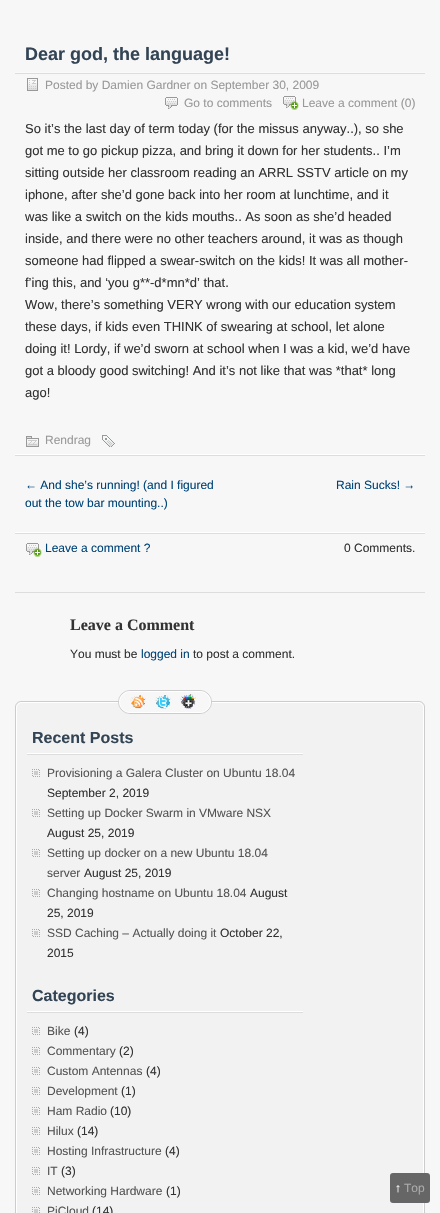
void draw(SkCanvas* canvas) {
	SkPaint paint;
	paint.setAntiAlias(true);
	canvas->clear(0xfff7f7f7);
	paint.setColor(0xfffafafa);
	canvas->drawRect(SkRect::MakeXYWH(15, 72, 410, 1), paint);
	SkFont f1(fontMgr->matchFamilyStyle("Liberation Sans", SkFontStyle::Bold()), 18);
	f1.setSubpixel(true);
	paint.setColor(0xff334455);
	canvas->drawString("Dear god, the language!", 25, 60, f1, paint);
	paint.setColor(0xffdddddd);
	canvas->drawRect(SkRect::MakeXYWH(15, 73, 410, 1), paint);
	canvas->drawImageRect(SkImages::DeferredFromEncodedData(SkData::MakeFromFileName("img1.png")), SkRect::MakeXYWH(27, 78, 11, 13), SkSamplingOptions());
	SkFont f2(fontMgr->matchFamilyStyle("Liberation Sans", SkFontStyle::Normal()), 12);
	f2.setSubpixel(true);
	paint.setColor(0xff999999);
	canvas->drawString("Posted by Damien Gardner on September 30, 2009", 45, 89, f2, paint);
	canvas->drawImageRect(SkImages::DeferredFromEncodedData(SkData::MakeFromFileName("img2.png")), SkRect::MakeXYWH(165, 97, 13, 12), SkSamplingOptions());
	canvas->drawString("Go to comments", 184, 107, f2, paint);
	canvas->drawImageRect(SkImages::DeferredFromEncodedData(SkData::MakeFromFileName("img3.png")), SkRect::MakeXYWH(283, 96, 16, 14), SkSamplingOptions());
	canvas->drawString("Leave a comment (0)", 302, 107, f2, paint);
	SkFont f3(fontMgr->matchFamilyStyle("Liberation Sans", SkFontStyle::Normal()), 13);
	f3.setSubpixel(true);
	paint.setColor(0xff333333);
	canvas->drawString("So it’s the last day of term today (for the missus anyway..), so she", 25, 133, f3, paint);
	canvas->drawString("got me to go pickup pizza, and bring it down for her students.. I’m", 25, 155, f3, paint);
	canvas->drawString("sitting outside her classroom reading an ARRL SSTV article on my", 25, 177, f3, paint);
	canvas->drawString("iphone, after she’d gone back into her room at lunchtime, and it", 25, 199, f3, paint);
	canvas->drawString("was like a switch on the kids mouths.. As soon as she’d headed", 25, 221, f3, paint);
	canvas->drawString("inside, and there were no other teachers around, it was as though", 25, 243, f3, paint);
	canvas->drawString("someone had flipped a swear-switch on the kids! It was all mother-", 25, 265, f3, paint);
	canvas->drawString("f’ing this, and ‘you g**-d*mn*d’ that.", 25, 287, f3, paint);
	canvas->drawString("Wow, there’s something VERY wrong with our education system", 25, 309, f3, paint);
	canvas->drawString("these days, if kids even THINK of swearing at school, let alone", 25, 331, f3, paint);
	canvas->drawString("doing it! Lordy, if we’d sworn at school when I was a kid, we’d have", 25, 353, f3, paint);
	canvas->drawString("got a bloody good switching! And it’s not like that was *that* long", 25, 375, f3, paint);
	canvas->drawString("ago!", 25, 397, f3, paint);
	paint.setColor(0xffffffff);
	canvas->drawRect(SkRect::MakeXYWH(15, 454, 410, 1), paint);
	canvas->drawImageRect(SkImages::DeferredFromEncodedData(SkData::MakeFromFileName("img4.png")), SkRect::MakeXYWH(26, 436, 13, 11), SkSamplingOptions());
	paint.setColor(0xff999999);
	canvas->drawString("Rendrag", 45, 444, f2, paint);
	canvas->drawImageRect(SkImages::DeferredFromEncodedData(SkData::MakeFromFileName("img5.png")), SkRect::MakeXYWH(102, 435, 13, 12), SkSamplingOptions());
	paint.setColor(0xffdddddd);
	canvas->drawRect(SkRect::MakeXYWH(15, 455, 410, 1), paint);
	paint.setColor(0xffffffff);
	canvas->drawRect(SkRect::MakeXYWH(15, 532, 410, 1), paint);
	paint.setColor(0xff004477);
	canvas->drawString("← And she’s running! (and I figured", 25, 489, f2, paint);
	canvas->drawString("out the tow bar mounting..)", 25, 507, f2, paint);
	canvas->drawString("Rain Sucks! →", 336, 489, f2, paint);
	paint.setColor(0xffdddddd);
	canvas->drawRect(SkRect::MakeXYWH(15, 533, 410, 1), paint);
	canvas->drawImageRect(SkImages::DeferredFromEncodedData(SkData::MakeFromFileName("img3.png")), SkRect::MakeXYWH(26, 543, 16, 14), SkSamplingOptions());
	paint.setColor(0xff004477);
	canvas->drawString("Leave a comment ?", 45, 552, f2, paint);
	paint.setColor(0xff333333);
	canvas->drawString("0 Comments.", 344, 552, f2, paint);
	paint.setColor(0xffdddddd);
	canvas->drawRect(SkRect::MakeXYWH(15, 592, 410, 1), paint);
	SkFont f4(fontMgr->matchFamilyStyle("Liberation Serif", SkFontStyle::Bold()), 16);
	f4.setSubpixel(true);
	paint.setColor(0xff333333);
	canvas->drawString("Leave a Comment", 70, 630, f4, paint);
	canvas->drawString("You must be", 70, 658, f2, paint);
	paint.setColor(0xff004477);
	canvas->drawString("logged in", 141, 658, f2, paint);
	paint.setColor(0xff333333);
	canvas->drawString("to post a comment.", 193, 658, f2, paint);
	paint.setColor(0xfff2f2f2);
	canvas->drawRoundRect(SkRect::MakeXYWH(15.5, 701.5, 409, 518), 5.5, 5.5, paint);
	paint.setStroke(true);
	paint.setStrokeWidth(1);
	paint.setColor(0xffcccccc);
	canvas->drawRoundRect(SkRect::MakeXYWH(15.5, 701.5, 409, 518), 5.5, 5.5, paint);
	paint.setColor(0xffffffff);
	canvas->drawRoundRect(SkRect::MakeXYWH(16.5, 702.5, 407, 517), 5.5, 5.5, paint);
	paint.setColor(0xffcccccc);
	canvas->drawRoundRect(SkRect::MakeXYWH(118.5, 690.5, 93, 23), 11.5, 11.5, paint);
	paint.setStroke(false);
	paint.setColor(0xfff7f7f7);
	canvas->drawRoundRect(SkRect::MakeXYWH(119.5, 691.5, 91, 21), 10.5, 10.5, paint);
	paint.setStroke(true);
	paint.setColor(0xffffffff);
	canvas->drawRoundRect(SkRect::MakeXYWH(119.5, 691.5, 91, 21), 10.5, 10.5, paint);
	canvas->drawImageRect(SkImages::DeferredFromEncodedData(SkData::MakeFromFileName("img6.png")), SkRect::MakeXYWH(130, 695, 16, 14), SkSamplingOptions());
	canvas->drawImageRect(SkImages::DeferredFromEncodedData(SkData::MakeFromFileName("img7.png")), SkRect::MakeXYWH(155, 695, 16, 14), SkSamplingOptions());
	canvas->drawImageRect(SkImages::DeferredFromEncodedData(SkData::MakeFromFileName("img8.png")), SkRect::MakeXYWH(180, 694, 16, 15), SkSamplingOptions());
	paint.setStroke(false);
	canvas->drawRect(SkRect::MakeXYWH(27, 753, 276, 1), paint);
	SkFont f5(fontMgr->matchFamilyStyle("Liberation Sans", SkFontStyle::Bold()), 16);
	f5.setSubpixel(true);
	paint.setColor(0xff334455);
	canvas->drawString("Recent Posts", 32, 743, f5, paint);
	paint.setColor(0xffdddddd);
	canvas->drawRect(SkRect::MakeXYWH(27, 754, 276, 1), paint);
	canvas->drawImageRect(SkImages::DeferredFromEncodedData(SkData::MakeFromFileName("img9.png")), SkRect::MakeXYWH(32, 769, 8, 8), SkSamplingOptions());
	paint.setColor(0xff555555);
	canvas->drawString("Provisioning a Galera Cluster on Ubuntu 18.04", 47, 777, f2, paint);
	paint.setColor(0xff333333);
	canvas->drawString("September 2, 2019", 47, 797, f2, paint);
	canvas->drawImageRect(SkImages::DeferredFromEncodedData(SkData::MakeFromFileName("img9.png")), SkRect::MakeXYWH(32, 809, 8, 8), SkSamplingOptions());
	paint.setColor(0xff555555);
	canvas->drawString("Setting up Docker Swarm in VMware NSX", 47, 817, f2, paint);
	paint.setColor(0xff333333);
	canvas->drawString("August 25, 2019", 47, 837, f2, paint);
	canvas->drawImageRect(SkImages::DeferredFromEncodedData(SkData::MakeFromFileName("img9.png")), SkRect::MakeXYWH(32, 849, 8, 8), SkSamplingOptions());
	paint.setColor(0xff555555);
	canvas->drawString("Setting up docker on a new Ubuntu 18.04", 47, 857, f2, paint);
	canvas->drawString("server", 47, 877, f2, paint);
	paint.setColor(0xff333333);
	canvas->drawString("August 25, 2019", 84, 877, f2, paint);
	canvas->drawImageRect(SkImages::DeferredFromEncodedData(SkData::MakeFromFileName("img9.png")), SkRect::MakeXYWH(32, 889, 8, 8), SkSamplingOptions());
	paint.setColor(0xff555555);
	canvas->drawString("Changing hostname on Ubuntu 18.04", 47, 897, f2, paint);
	paint.setColor(0xff333333);
	canvas->drawString("August", 250, 897, f2, paint);
	canvas->drawString("25, 2019", 47, 917, f2, paint);
	canvas->drawImageRect(SkImages::DeferredFromEncodedData(SkData::MakeFromFileName("img9.png")), SkRect::MakeXYWH(32, 929, 8, 8), SkSamplingOptions());
	paint.setColor(0xff555555);
	canvas->drawString("SSD Caching – Actually doing it", 47, 937, f2, paint);
	paint.setColor(0xff333333);
	canvas->drawString("October 22,", 220, 937, f2, paint);
	canvas->drawString("2015", 47, 957, f2, paint);
	paint.setColor(0xffffffff);
	canvas->drawRect(SkRect::MakeXYWH(27, 1011, 276, 1), paint);
	paint.setColor(0xff334455);
	canvas->drawString("Categories", 32, 1001, f5, paint);
	paint.setColor(0xffdddddd);
	canvas->drawRect(SkRect::MakeXYWH(27, 1012, 276, 1), paint);
	canvas->drawImageRect(SkImages::DeferredFromEncodedData(SkData::MakeFromFileName("img9.png")), SkRect::MakeXYWH(32, 1027, 8, 8), SkSamplingOptions());
	paint.setColor(0xff555555);
	canvas->drawString("Bike", 47, 1035, f2, paint);
	paint.setColor(0xff333333);
	canvas->drawString("(4)", 74, 1035, f2, paint);
	canvas->drawImageRect(SkImages::DeferredFromEncodedData(SkData::MakeFromFileName("img9.png")), SkRect::MakeXYWH(32, 1047, 8, 8), SkSamplingOptions());
	paint.setColor(0xff555555);
	canvas->drawString("Commentary", 47, 1055, f2, paint);
	paint.setColor(0xff333333);
	canvas->drawString("(2)", 119, 1055, f2, paint);
	canvas->drawImageRect(SkImages::DeferredFromEncodedData(SkData::MakeFromFileName("img9.png")), SkRect::MakeXYWH(32, 1067, 8, 8), SkSamplingOptions());
	paint.setColor(0xff555555);
	canvas->drawString("Custom Antennas", 47, 1075, f2, paint);
	paint.setColor(0xff333333);
	canvas->drawString("(4)", 146, 1075, f2, paint);
	canvas->drawImageRect(SkImages::DeferredFromEncodedData(SkData::MakeFromFileName("img9.png")), SkRect::MakeXYWH(32, 1087, 8, 8), SkSamplingOptions());
	paint.setColor(0xff555555);
	canvas->drawString("Development", 47, 1095, f2, paint);
	paint.setColor(0xff333333);
	canvas->drawString("(1)", 121, 1095, f2, paint);
	canvas->drawImageRect(SkImages::DeferredFromEncodedData(SkData::MakeFromFileName("img9.png")), SkRect::MakeXYWH(32, 1107, 8, 8), SkSamplingOptions());
	paint.setColor(0xff555555);
	canvas->drawString("Ham Radio", 47, 1115, f2, paint);
	paint.setColor(0xff333333);
	canvas->drawString("(10)", 110, 1115, f2, paint);
	canvas->drawImageRect(SkImages::DeferredFromEncodedData(SkData::MakeFromFileName("img9.png")), SkRect::MakeXYWH(32, 1127, 8, 8), SkSamplingOptions());
	paint.setColor(0xff555555);
	canvas->drawString("Hilux", 47, 1135, f2, paint);
	paint.setColor(0xff333333);
	canvas->drawString("(14)", 77, 1135, f2, paint);
	canvas->drawImageRect(SkImages::DeferredFromEncodedData(SkData::MakeFromFileName("img9.png")), SkRect::MakeXYWH(32, 1147, 8, 8), SkSamplingOptions());
	paint.setColor(0xff555555);
	canvas->drawString("Hosting Infrastructure", 47, 1155, f2, paint);
	paint.setColor(0xff333333);
	canvas->drawString("(4)", 165, 1155, f2, paint);
	canvas->drawImageRect(SkImages::DeferredFromEncodedData(SkData::MakeFromFileName("img9.png")), SkRect::MakeXYWH(32, 1167, 8, 8), SkSamplingOptions());
	paint.setColor(0xff555555);
	canvas->drawString("IT", 47, 1175, f2, paint);
	paint.setColor(0xff333333);
	canvas->drawString("(3)", 61, 1175, f2, paint);
	canvas->drawImageRect(SkImages::DeferredFromEncodedData(SkData::MakeFromFileName("img9.png")), SkRect::MakeXYWH(32, 1187, 8, 8), SkSamplingOptions());
	paint.setColor(0xff555555);
	canvas->drawString("Networking Hardware", 47, 1195, f2, paint);
	paint.setColor(0xff333333);
	canvas->drawString("(1)", 166, 1195, f2, paint);
	canvas->drawImageRect(SkImages::DeferredFromEncodedData(SkData::MakeFromFileName("img10.png")), SkRect::MakeXYWH(32, 1207, 8, 6), SkSamplingOptions());
	paint.setColor(0xff555555);
	canvas->drawString("PiCloud", 47, 1215, f2, paint);
	paint.setColor(0xff333333);
	canvas->drawString("(14)", 92, 1215, f2, paint);
	paint.setColor(0xff666666);
	canvas->drawRoundRect(SkRect::MakeXYWH(390, 1173, 40, 30), 3, 3, paint);
	SkFont f6(fontMgr->matchFamilyStyle("Liberation Sans", SkFontStyle::Bold()), 12);
	f6.setSubpixel(true);
	paint.setColor(0xfffafafa);
	canvas->drawString("↑", 395, 1192, f6, paint);
	paint.setColor(0xffaaaaaa);
	canvas->drawString("Top", 404, 1192, f2, paint);
}
